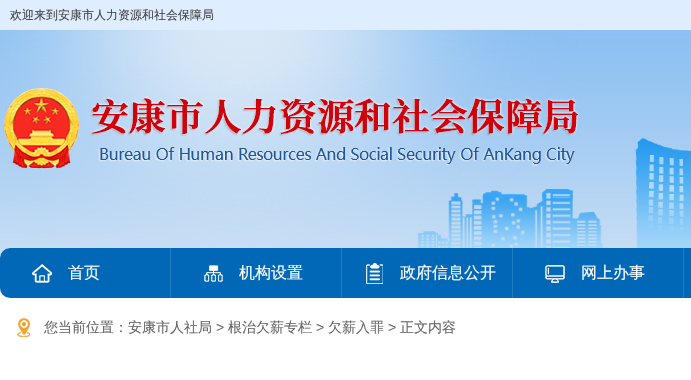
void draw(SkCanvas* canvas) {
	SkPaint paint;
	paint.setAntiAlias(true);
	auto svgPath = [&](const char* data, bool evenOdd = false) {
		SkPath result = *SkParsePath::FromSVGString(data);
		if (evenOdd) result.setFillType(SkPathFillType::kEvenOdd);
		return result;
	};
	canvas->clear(0xffffffff);
	canvas->drawImageRect(SkImages::DeferredFromEncodedData(SkData::MakeFromFileName("img1.png")), SkRect::MakeXYWH(0, 30, 691, 228), SkSamplingOptions());
	paint.setColor(0xffdeedff);
	canvas->drawRect(SkRect::MakeXYWH(0, 0, 691, 30), paint);
	SkFont f1(fontMgr->matchFamilyStyle("WenQuanYi Zen Hei", SkFontStyle(500, SkFontStyle::kNormal_Width, SkFontStyle::kUpright_Slant)), 12);
	f1.setSubpixel(true);
	paint.setColor(0xff444444);
	canvas->drawString("欢迎来到安康市人力资源和社会保障局", 10, 19, f1, paint);
	canvas->drawImageRect(SkImages::DeferredFromEncodedData(SkData::MakeFromFileName("img2.png")), SkRect::MakeXYWH(417, 137, 274, 111), SkSamplingOptions());
	canvas->drawImageRect(SkImages::DeferredFromEncodedData(SkData::MakeFromFileName("img3.png")), SkRect::MakeXYWH(4, 88, 576, 81), SkSamplingOptions());
	paint.setColor(0xffffffff);
	canvas->drawPath(svgPath("M10 248H691C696.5 248 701 252.5 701 258V298H0V258C0 252.5 4.5 248 10 248Z"), paint);
	paint.setColor(0xff0068b7);
	canvas->drawRoundRect(SkRect::MakeXYWH(0, 248, 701, 50), 10, 10, paint);
	paint.setColor(0xff217cc0);
	canvas->drawRect(SkRect::MakeXYWH(170, 248, 1, 50), paint);
	canvas->drawImageRect(SkImages::DeferredFromEncodedData(SkData::MakeFromFileName("img4.png")), SkRect::MakeXYWH(32, 264, 20, 19), SkSamplingOptions());
	SkFont f2(fontMgr->matchFamilyStyle("WenQuanYi Zen Hei", SkFontStyle(500, SkFontStyle::kNormal_Width, SkFontStyle::kUpright_Slant)), 16);
	f2.setSubpixel(true);
	paint.setColor(0xffffffff);
	canvas->drawString("首页", 68, 278, f2, paint);
	paint.setColor(0xff217cc0);
	canvas->drawRect(SkRect::MakeXYWH(341, 248, 1, 50), paint);
	canvas->drawImageRect(SkImages::DeferredFromEncodedData(SkData::MakeFromFileName("img5.png")), SkRect::MakeXYWH(204, 265, 19, 17), SkSamplingOptions());
	paint.setColor(0xffffffff);
	canvas->drawString("机构设置", 239, 278, f2, paint);
	paint.setColor(0xff217cc0);
	canvas->drawRect(SkRect::MakeXYWH(512, 248, 1, 50), paint);
	canvas->drawImageRect(SkImages::DeferredFromEncodedData(SkData::MakeFromFileName("img6.png")), SkRect::MakeXYWH(366, 263, 17, 21), SkSamplingOptions());
	paint.setColor(0xffffffff);
	canvas->drawString("政府信息公开", 400, 278, f2, paint);
	paint.setColor(0xff217cc0);
	canvas->drawRect(SkRect::MakeXYWH(683, 248, 1, 50), paint);
	canvas->drawImageRect(SkImages::DeferredFromEncodedData(SkData::MakeFromFileName("img7.png")), SkRect::MakeXYWH(545, 265, 20, 18), SkSamplingOptions());
	paint.setColor(0xffffffff);
	canvas->drawString("网上办事", 581, 278, f2, paint);
	canvas->drawImageRect(SkImages::DeferredFromEncodedData(SkData::MakeFromFileName("img8.png")), SkRect::MakeXYWH(17, 318, 13, 19), SkSamplingOptions());
	SkFont f3(fontMgr->matchFamilyStyle("WenQuanYi Zen Hei", SkFontStyle(500, SkFontStyle::kNormal_Width, SkFontStyle::kUpright_Slant)), 14);
	f3.setSubpixel(true);
	paint.setColor(0xff666666);
	canvas->drawString("您当前位置：安康市人社局", 44, 332, f3, paint);
	SkFont f4(fontMgr->matchFamilyStyle("Liberation Sans", SkFontStyle::Normal()), 14);
	f4.setSubpixel(true);
	canvas->drawString(">", 216, 332, f4, paint);
	canvas->drawString("根治欠薪专栏", 228, 332, f3, paint);
	canvas->drawString(">", 316, 332, f4, paint);
	canvas->drawString("欠薪入罪", 328, 332, f3, paint);
	canvas->drawString(">", 388, 332, f4, paint);
	canvas->drawString("正文内容", 400, 332, f3, paint);
}
